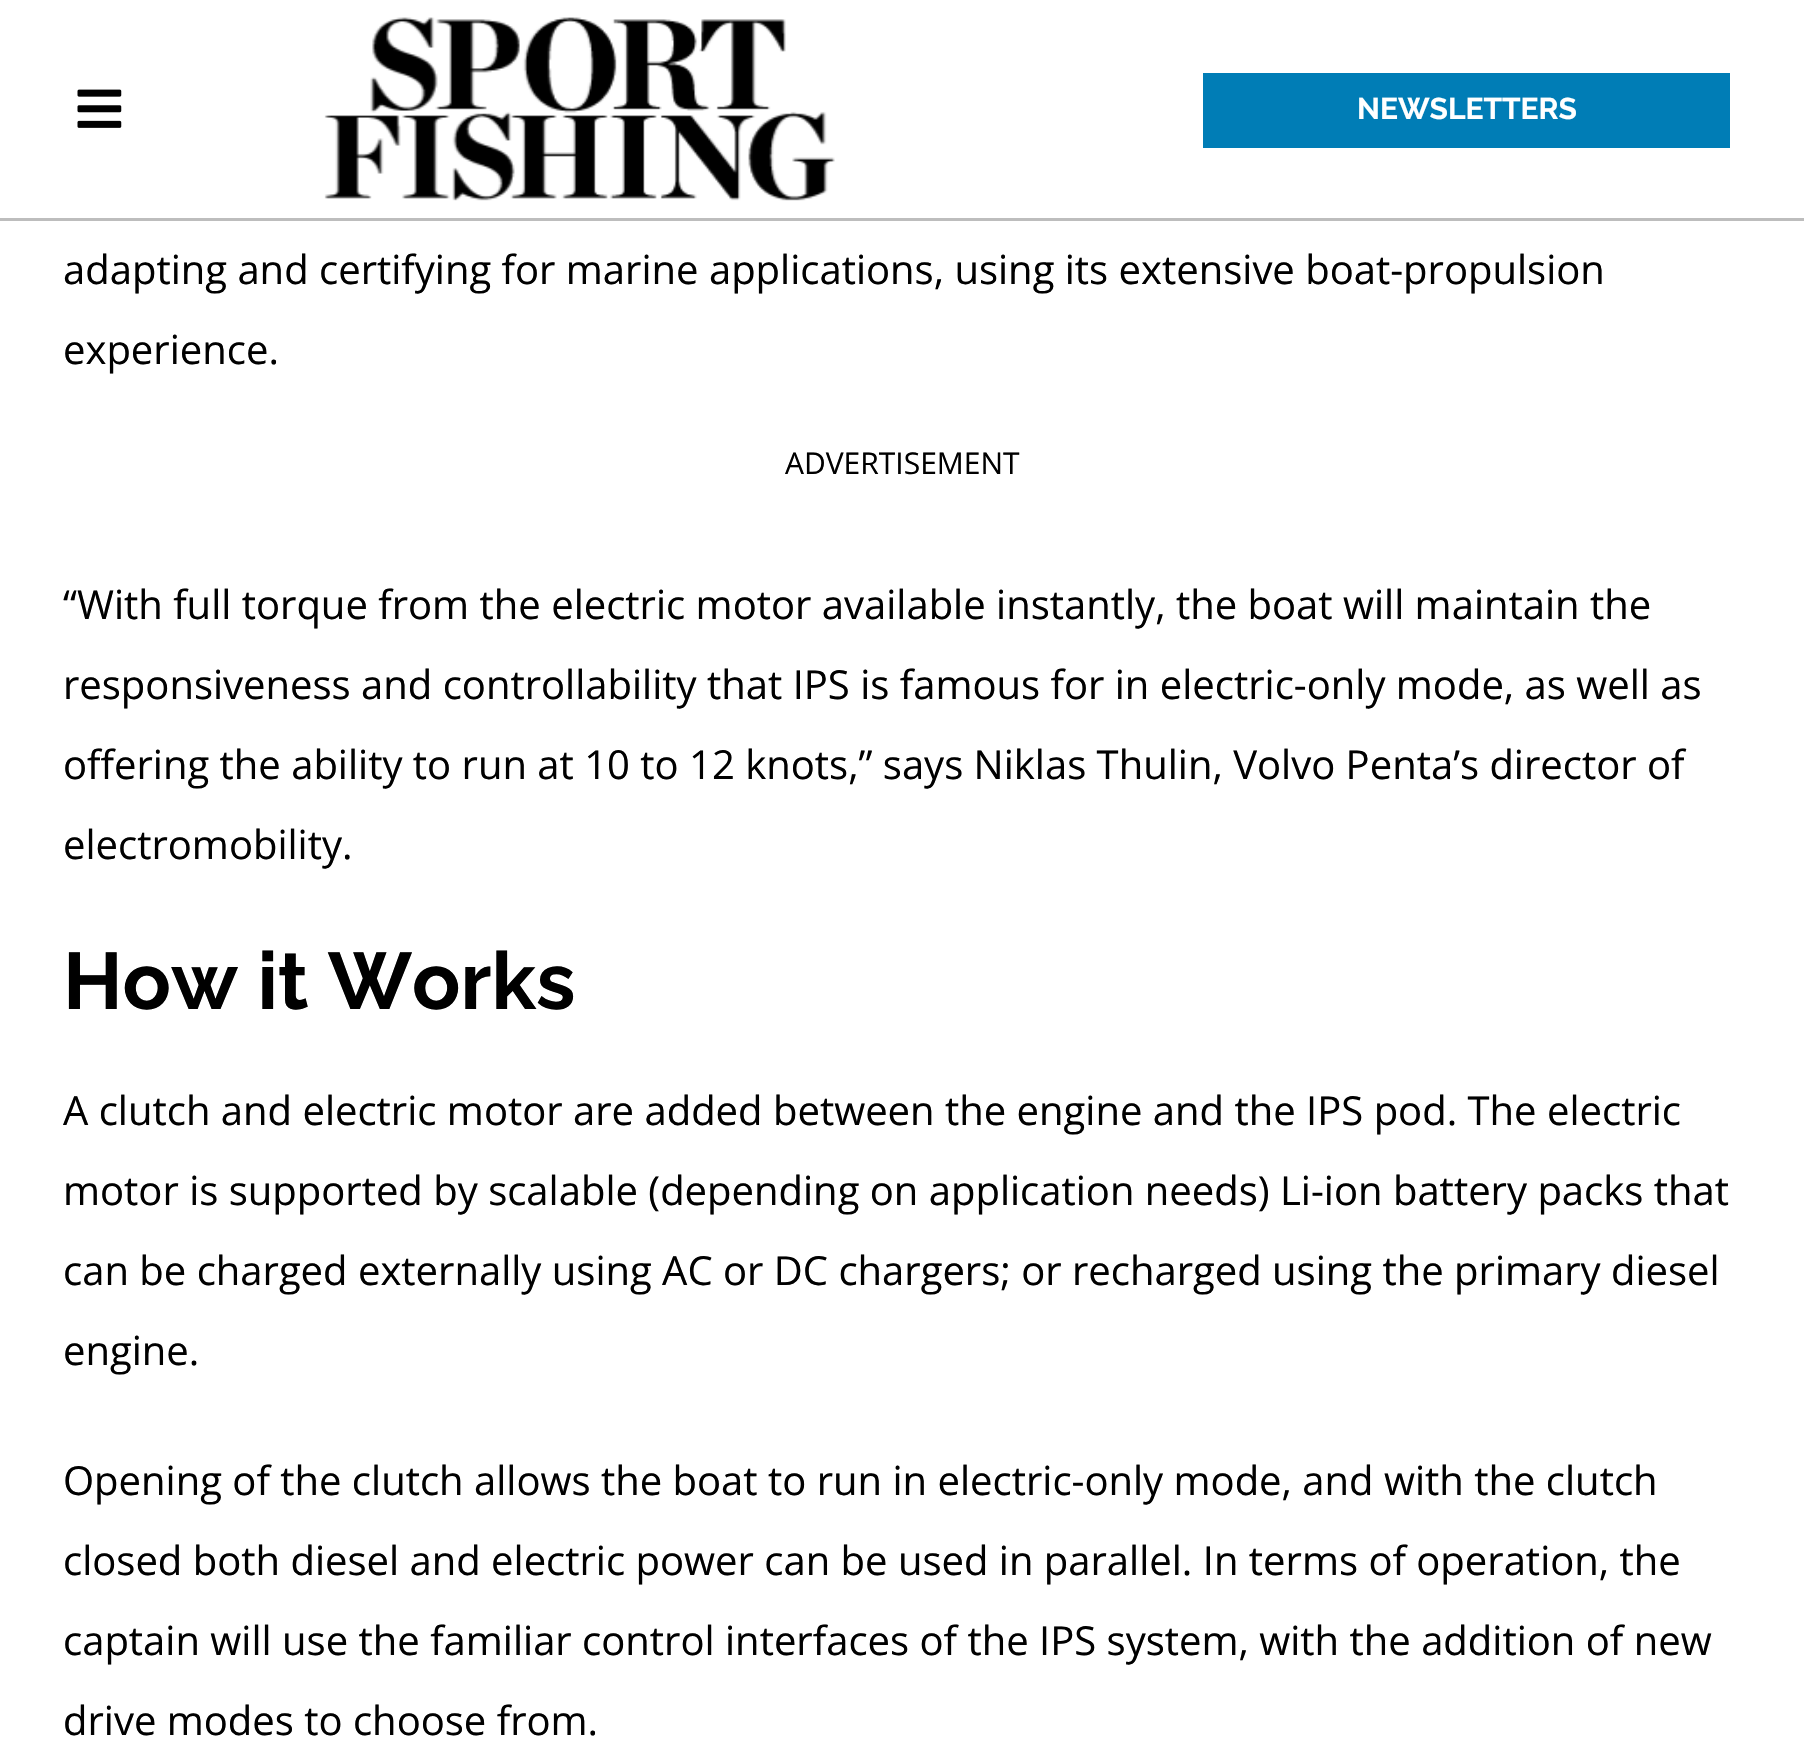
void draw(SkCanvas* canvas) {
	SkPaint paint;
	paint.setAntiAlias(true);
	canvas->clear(0xffffffff);
	paint.setColor(0xffbdbdbd);
	canvas->drawRect(SkRect::MakeXYWH(0, 218, 1804, 3), paint);
	canvas->drawImageRect(SkImages::DeferredFromEncodedData(SkData::MakeFromFileName("img1.png")), SkRect::MakeXYWH(77, 89, 45, 39), SkSamplingOptions());
	canvas->drawImageRect(SkImages::DeferredFromEncodedData(SkData::MakeFromFileName("img2.png")), SkRect::MakeXYWH(324, 17, 511, 184), SkSamplingOptions());
	paint.setColor(0xff007db6);
	canvas->drawRect(SkRect::MakeXYWH(1203, 73, 527, 75), paint);
	SkFont f1(fontMgr->matchFamilyStyle("Raleway", SkFontStyle::Bold()), 30);
	f1.setSubpixel(true);
	paint.setColor(0xffffffff);
	canvas->drawString("NEWSLETTERS", 1357, 119, f1, paint);
	SkFont f2(fontMgr->matchFamilyStyle("Open Sans", SkFontStyle::Normal()), 40);
	f2.setSubpixel(true);
	paint.setColor(0xff000000);
	canvas->drawString("adapting and certifying for marine applications, using its extensive boat-propulsion", 63, 284, f2, paint);
	canvas->drawString("experience.", 63, 364, f2, paint);
	SkFont f3(fontMgr->matchFamilyStyle("Open Sans", SkFontStyle::Normal()), 30);
	f3.setSubpixel(true);
	canvas->drawString("ADVERTISEMENT", 785, 474, f3, paint);
	canvas->drawString("“With full torque from the electric motor available instantly, the boat will maintain the", 63, 619, f2, paint);
	canvas->drawString("responsiveness and controllability that IPS is famous for in electric-only mode, as well as", 63, 699, f2, paint);
	canvas->drawString("offering the ability to run at 10 to 12 knots,” says Niklas Thulin, Volvo Penta’s director of", 63, 779, f2, paint);
	canvas->drawString("electromobility.", 63, 859, f2, paint);
	SkFont f4(fontMgr->matchFamilyStyle("Raleway", SkFontStyle::Bold()), 80);
	f4.setSubpixel(true);
	canvas->drawString("How it Works", 63, 1009, f4, paint);
	canvas->drawString("A clutch and electric motor are added between the engine and the IPS pod. The electric", 63, 1125, f2, paint);
	canvas->drawString("motor is supported by scalable (depending on application needs) Li-ion battery packs that", 63, 1205, f2, paint);
	canvas->drawString("can be charged externally using AC or DC chargers; or recharged using the primary diesel", 63, 1285, f2, paint);
	canvas->drawString("engine.", 63, 1365, f2, paint);
	canvas->drawString("Opening of the clutch allows the boat to run in electric-only mode, and with the clutch", 63, 1495, f2, paint);
	canvas->drawString("closed both diesel and electric power can be used in parallel. In terms of operation, the", 63, 1575, f2, paint);
	canvas->drawString("captain will use the familiar control interfaces of the IPS system, with the addition of new", 63, 1655, f2, paint);
	canvas->drawString("drive modes to choose from.", 63, 1735, f2, paint);
}
